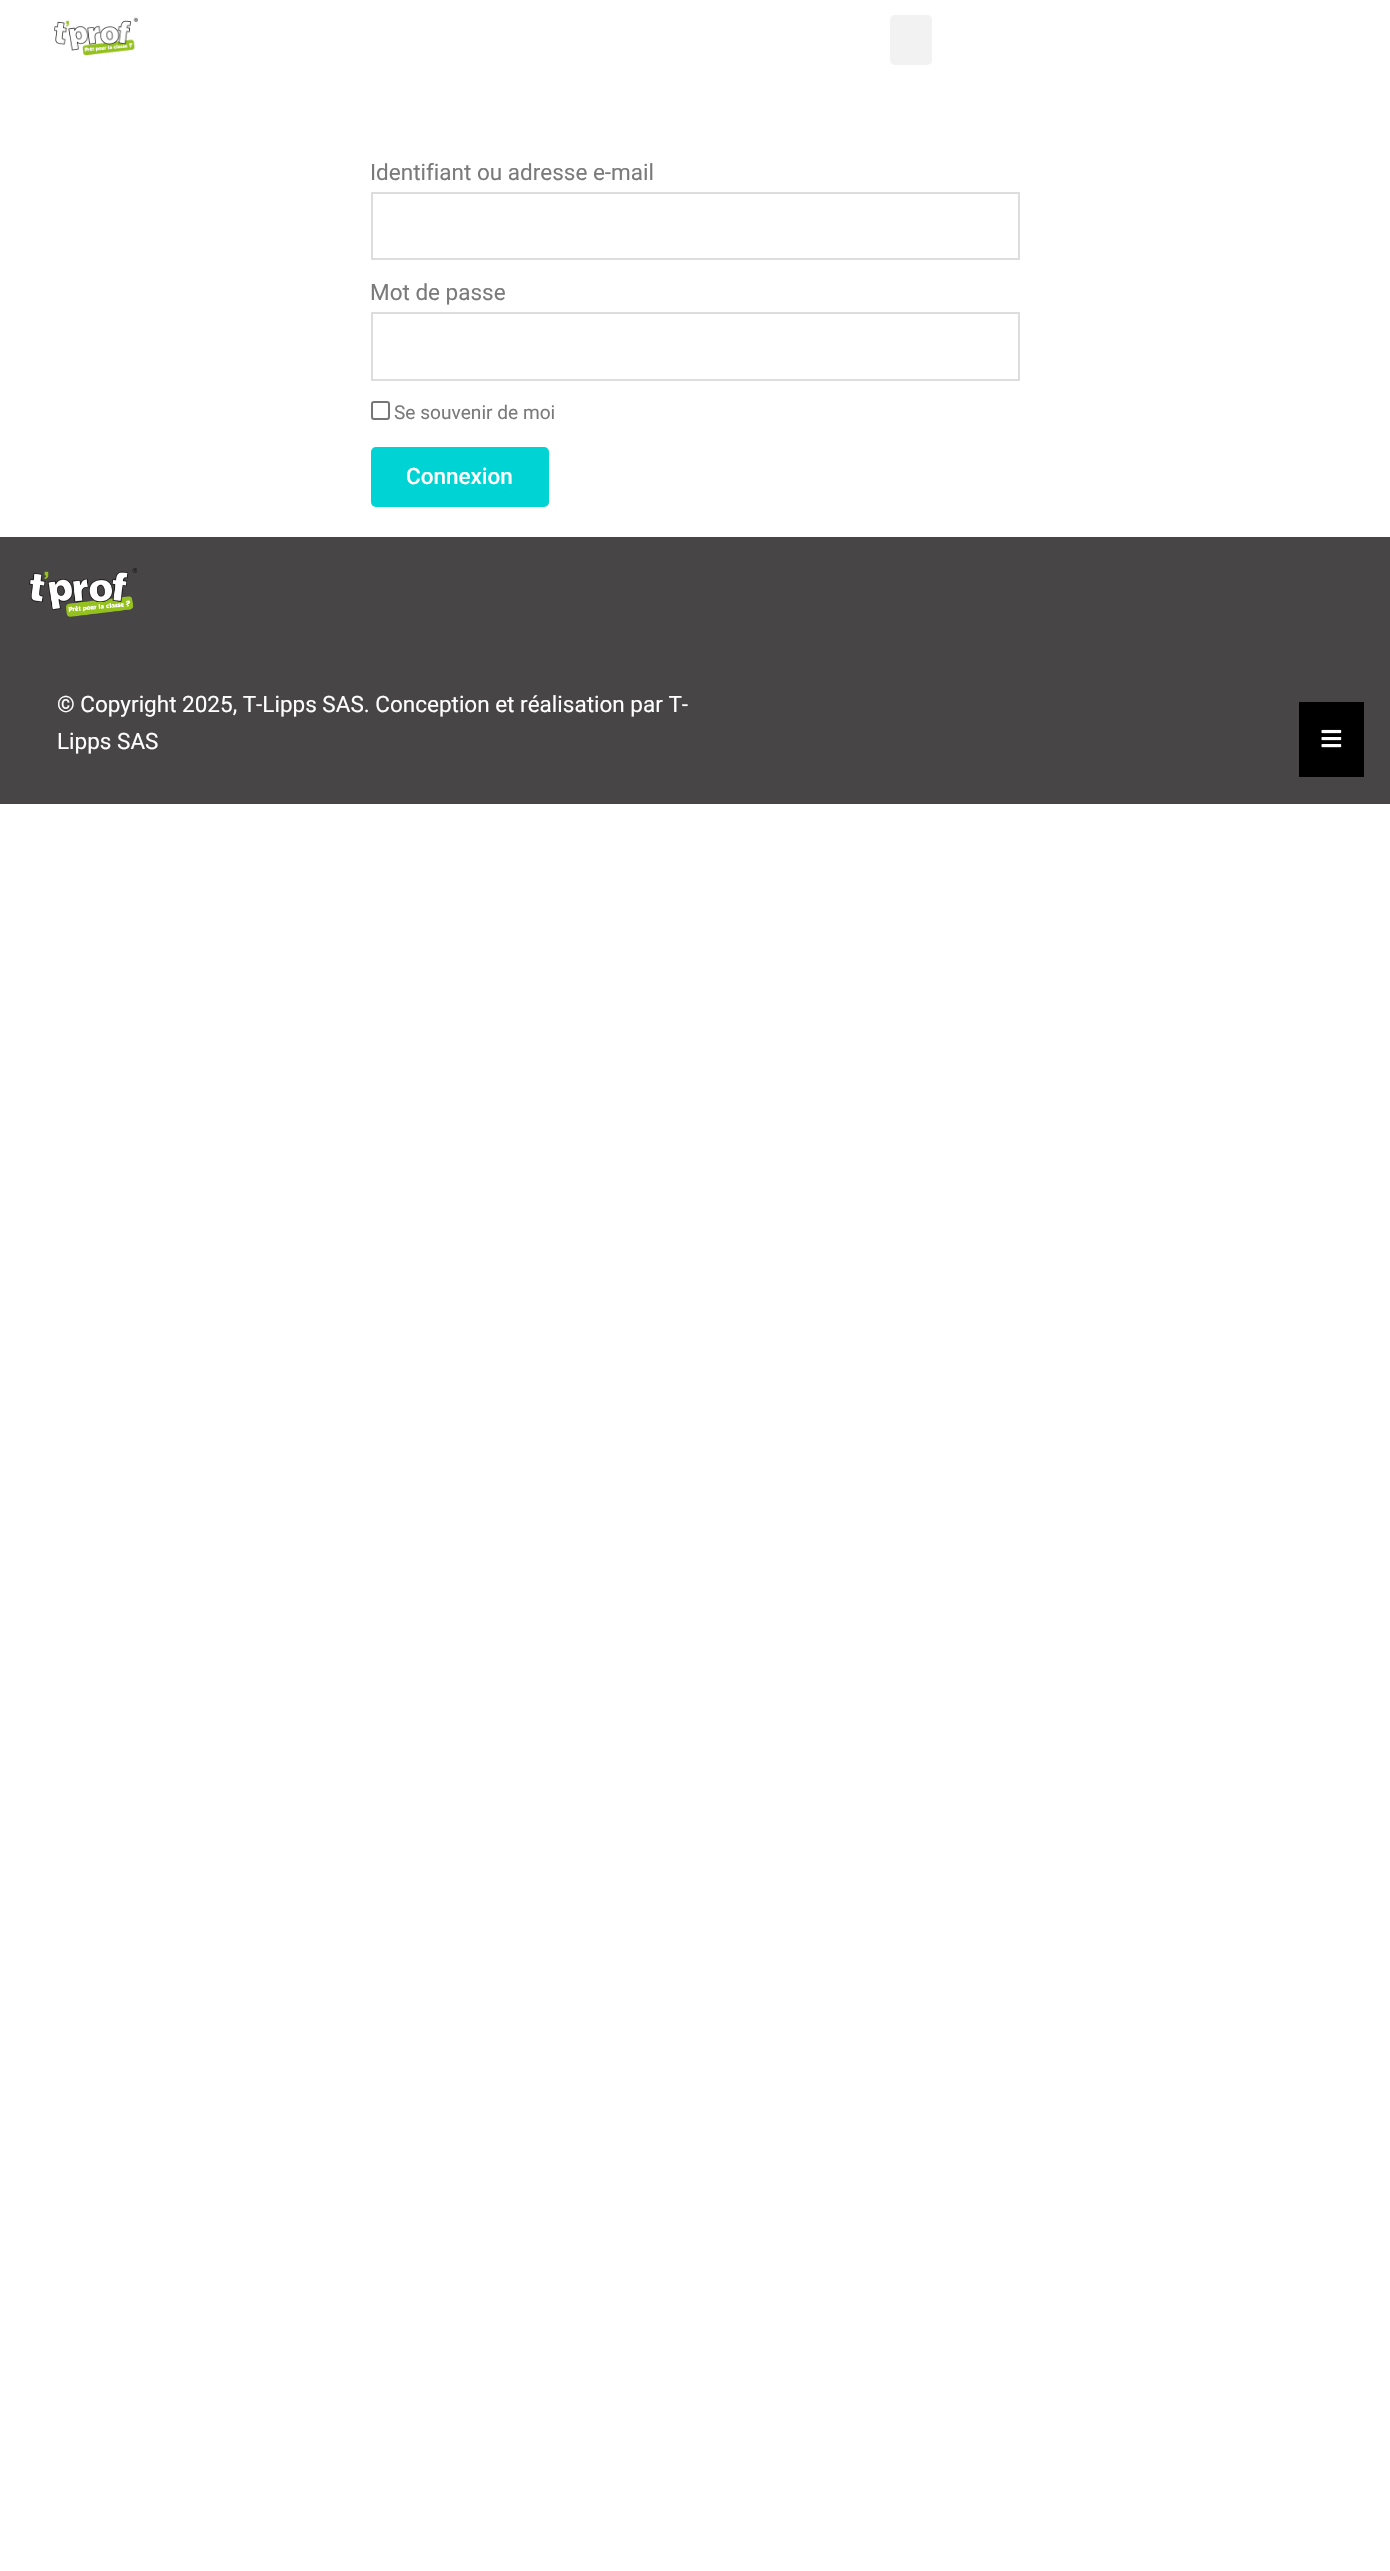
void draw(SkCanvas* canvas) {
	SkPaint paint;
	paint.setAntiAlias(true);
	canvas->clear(0xffffffff);
	canvas->drawImageRect(SkImages::DeferredFromEncodedData(SkData::MakeFromFileName("img1.png")), SkRect::MakeXYWH(54, 17, 84, 39), SkSamplingOptions());
	paint.setColor(0xfff2f2f2);
	canvas->drawRoundRect(SkRect::MakeXYWH(890, 15, 42, 50), 5, 5, paint);
	SkFont f1(fontMgr->matchFamilyStyle("Roboto", SkFontStyle::Normal()), 22.5);
	f1.setSubpixel(true);
	paint.setColor(0xff7a7a7a);
	canvas->drawString("Identifiant ou adresse e-mail", 370, 180, f1, paint);
	paint.setStroke(true);
	paint.setStrokeWidth(2);
	paint.setColor(0xffdddddd);
	canvas->drawRect(SkRect::MakeXYWH(372, 193, 647, 66), paint);
	paint.setStroke(false);
	paint.setColor(0xff7a7a7a);
	canvas->drawString("Mot de passe", 370, 300, f1, paint);
	paint.setStroke(true);
	paint.setColor(0xffdddddd);
	canvas->drawRect(SkRect::MakeXYWH(372, 313, 647, 67), paint);
	paint.setColor(0xff767676);
	canvas->drawRoundRect(SkRect::MakeXYWH(372, 402, 17, 17), 2, 2, paint);
	SkFont f2(fontMgr->matchFamilyStyle("Roboto", SkFontStyle::Normal()), 19.1);
	f2.setSubpixel(true);
	paint.setStroke(false);
	paint.setColor(0xff7a7a7a);
	canvas->drawString("Se souvenir de moi", 394, 419, f2, paint);
	paint.setColor(0xff00d3d3);
	canvas->drawRoundRect(SkRect::MakeXYWH(371, 447, 178, 60), 5, 5, paint);
	SkFont f3(fontMgr->matchFamilyStyle("Roboto", SkFontStyle(500, SkFontStyle::kNormal_Width, SkFontStyle::kUpright_Slant)), 22.5);
	f3.setSubpixel(true);
	paint.setColor(0xffffffff);
	canvas->drawString("Connexion", 406, 484, f3, paint);
	paint.setColor(0xff474545);
	canvas->drawRect(SkRect::MakeXYWH(0, 537, 1390, 267), paint);
	canvas->drawImageRect(SkImages::DeferredFromEncodedData(SkData::MakeFromFileName("img2.png")), SkRect::MakeXYWH(29, 568, 108, 49), SkSamplingOptions());
	paint.setColor(0xffffffff);
	canvas->drawString("© Copyright 2025, T-Lipps SAS. Conception et réalisation par T-", 57, 712, f1, paint);
	canvas->drawString("Lipps SAS", 57, 749, f1, paint);
	paint.setColor(0xff000000);
	canvas->drawRect(SkRect::MakeXYWH(1299, 702, 65, 75), paint);
	canvas->drawImageRect(SkImages::DeferredFromEncodedData(SkData::MakeFromFileName("img3.png")), SkRect::MakeXYWH(1321, 729, 21, 19), SkSamplingOptions());
}
